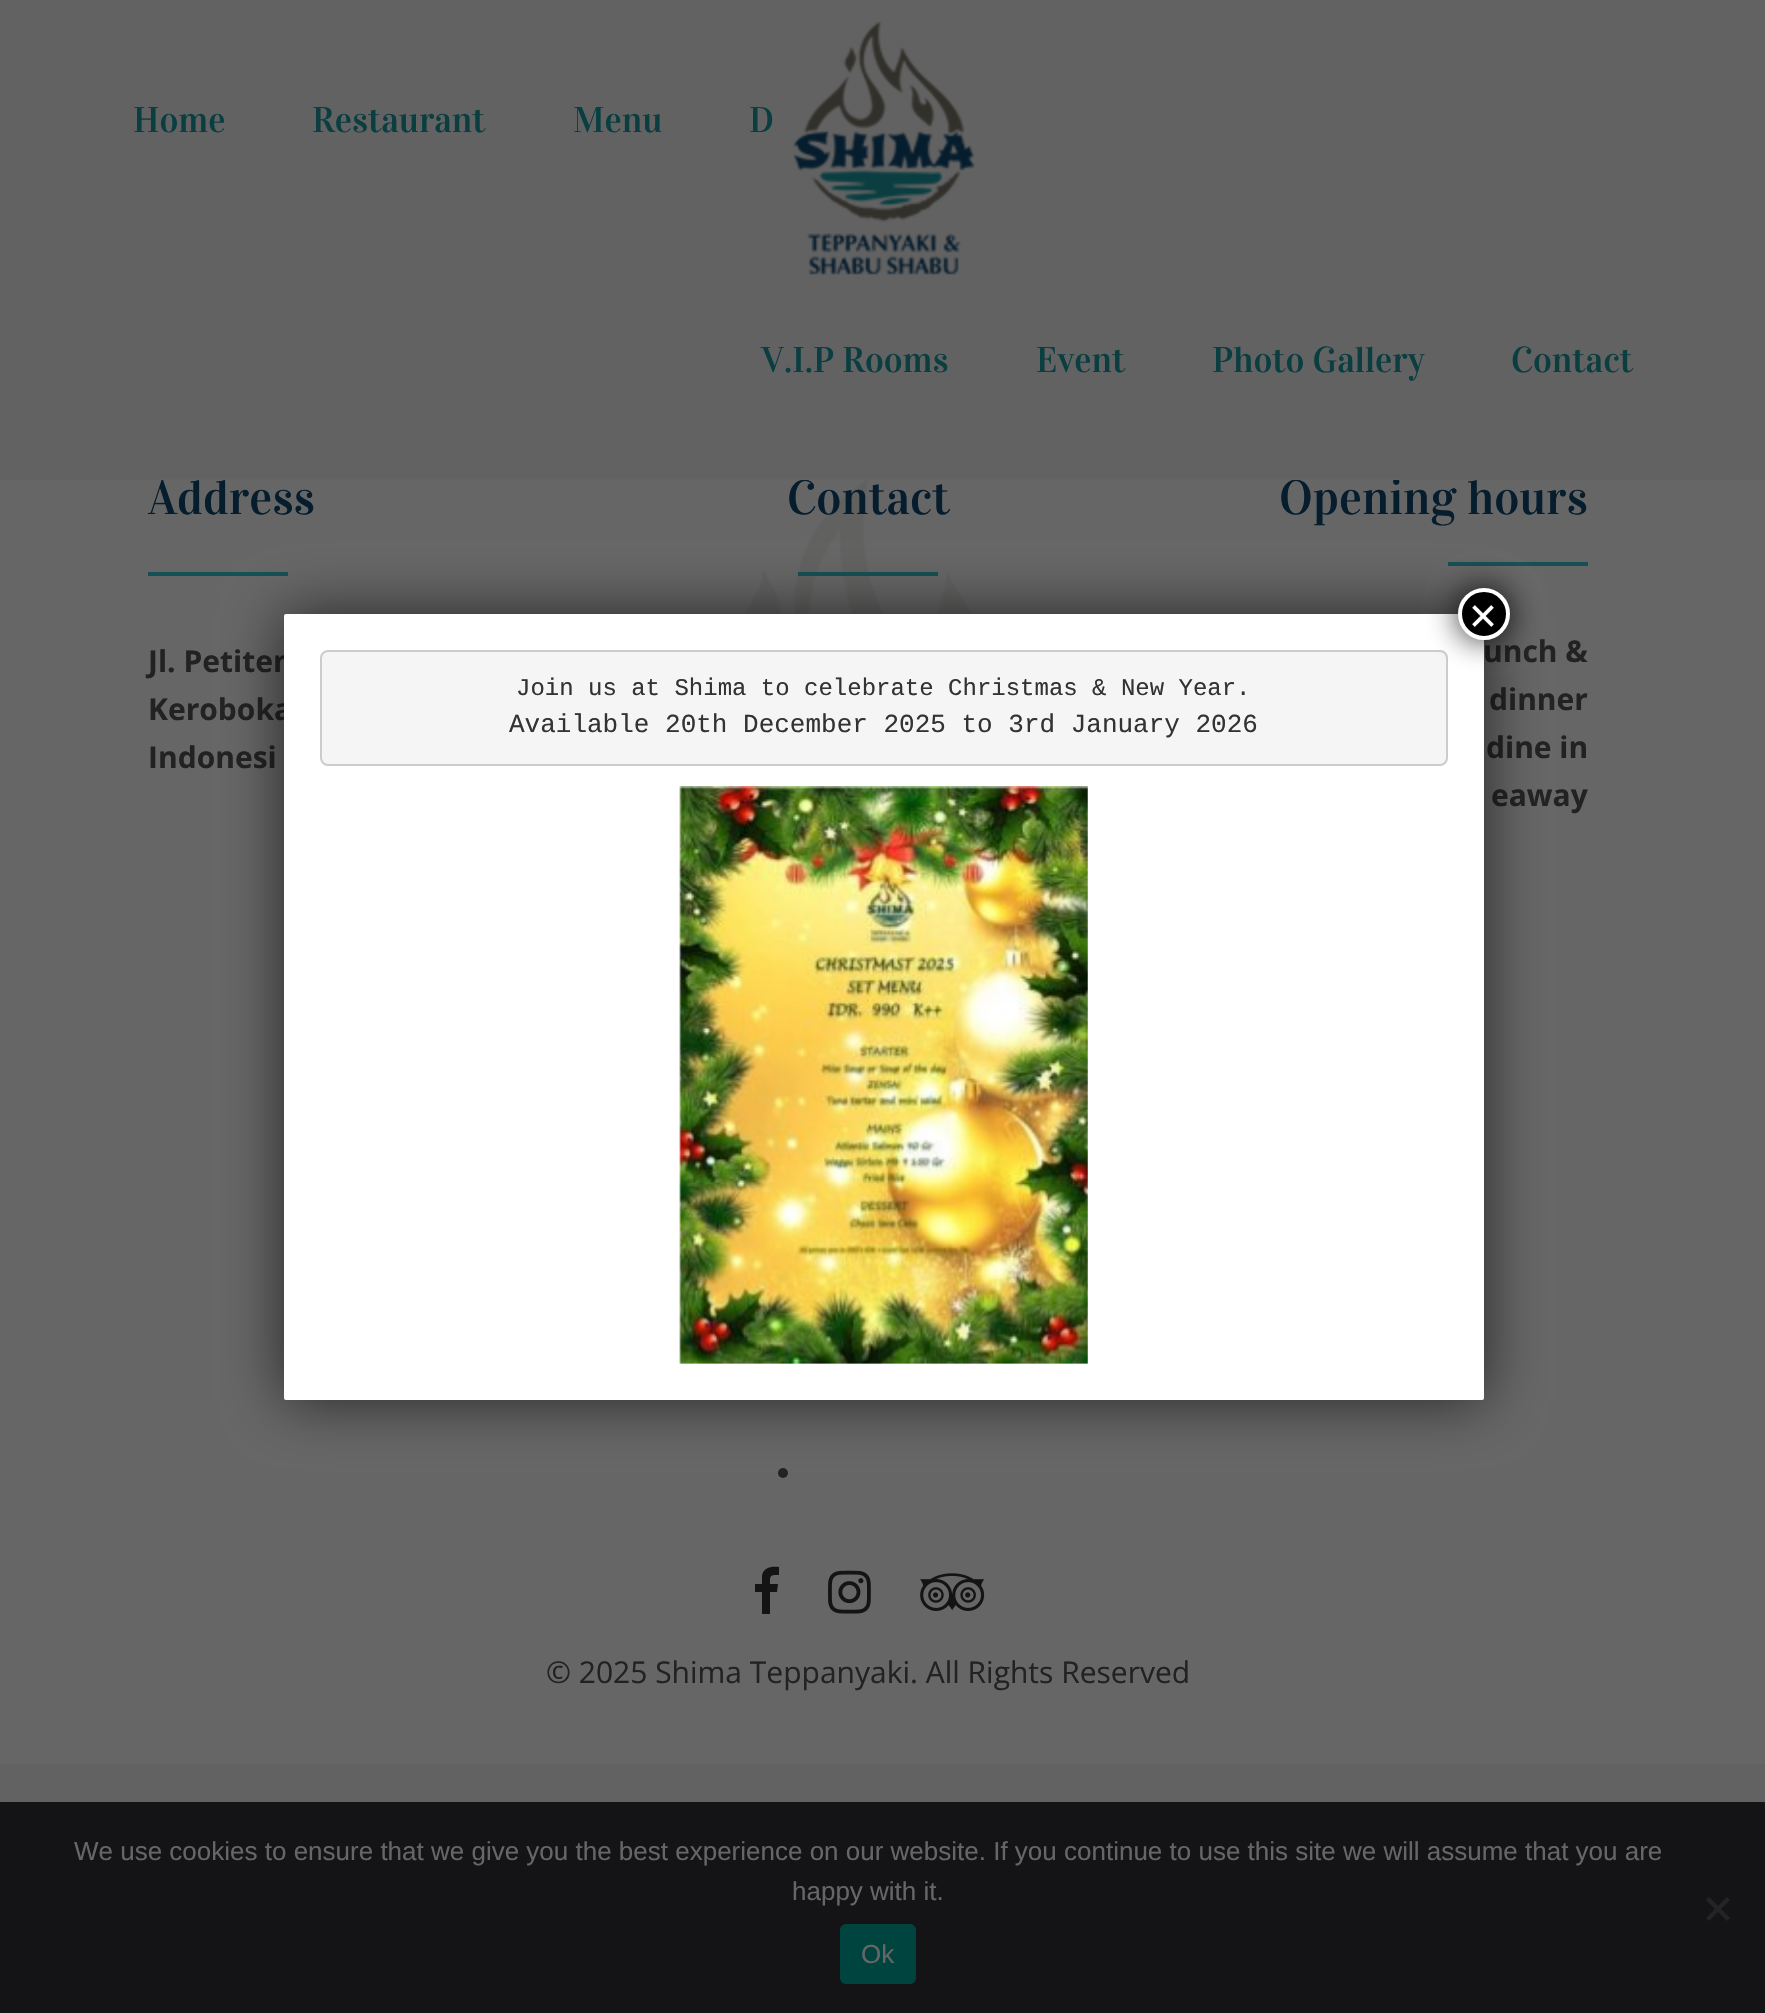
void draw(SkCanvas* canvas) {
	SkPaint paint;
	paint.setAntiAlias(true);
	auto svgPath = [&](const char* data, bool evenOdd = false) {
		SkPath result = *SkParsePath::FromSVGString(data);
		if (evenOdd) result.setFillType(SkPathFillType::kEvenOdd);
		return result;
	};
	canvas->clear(0xff626262);
	paint.setColor(0xff666666);
	canvas->drawRect(SkRect::MakeXYWH(0, 480, 1765, 1284), paint);
	SkFont f1(fontMgr->matchFamilyStyle("Vidaloka", SkFontStyle::Normal()), 48);
	f1.setSubpixel(true);
	paint.setColor(0xff061d2d);
	canvas->drawString("Address", 148, 514, f1, paint);
	canvas->drawImageRect(SkImages::DeferredFromEncodedData(SkData::MakeFromFileName("img2.png")), SkRect::MakeXYWH(744, 480, 228, 134), SkSamplingOptions());
	canvas->drawString("Contact", 787, 514, f1, paint);
	canvas->drawString("Opening hours", 1279, 514, f1, paint);
	paint.setColor(0xff646464);
	canvas->drawRect(SkRect::MakeXYWH(161, 478, 1238, 2), paint);
	canvas->drawImageRect(SkImages::DeferredFromEncodedData(SkData::MakeFromFileName("img1.png")), SkRect::MakeXYWH(793, 21, 182, 254), SkSamplingOptions());
	SkFont f2(fontMgr->matchFamilyStyle("Vidaloka", SkFontStyle::Normal()), 36);
	f2.setSubpixel(true);
	paint.setColor(0xff0a3e41);
	canvas->drawString("Home", 133, 132, f2, paint);
	canvas->drawString("Restaurant", 312, 132, f2, paint);
	canvas->drawString("Menu", 573, 132, f2, paint);
	canvas->drawString("D", 749, 132, f2, paint);
	canvas->drawString("V.I.P Rooms", 761, 372, f2, paint);
	canvas->drawString("Event", 1036, 372, f2, paint);
	canvas->drawString("Photo Gallery", 1212, 372, f2, paint);
	canvas->drawString("Contact", 1511, 372, f2, paint);
	paint.setColor(0xff145054);
	canvas->drawRect(SkRect::MakeXYWH(148, 572, 140, 4), paint);
	SkFont f3(fontMgr->matchFamilyStyle("Open Sans", SkFontStyle::Bold()), 30);
	f3.setSubpixel(true);
	paint.setColor(0xff222222);
	canvas->drawString("Jl. Petiten", 148, 672, f3, paint);
	canvas->drawString("Keroboka", 148, 720, f3, paint);
	canvas->drawString("Indonesi", 148, 768, f3, paint);
	paint.setColor(0xff145054);
	canvas->drawRect(SkRect::MakeXYWH(798, 572, 140, 4), paint);
	canvas->drawRect(SkRect::MakeXYWH(1448, 562, 140, 4), paint);
	paint.setColor(0xff222222);
	canvas->drawString("unch &", 1483, 662, f3, paint);
	canvas->drawString("dinner", 1489, 710, f3, paint);
	canvas->drawString("dine in", 1486, 758, f3, paint);
	canvas->drawString("eaway", 1491, 806, f3, paint);
	canvas->drawCircle(783, 1473, 5, paint);
	paint.setColor(0xff141414);
	canvas->drawPath(svgPath("M779 1567V1575C770 1575 770 1575 770 1584H778L777 1592H770V1614H762V1592H755V1584H762V1576C763 1567 772 1566 779 1567Z"), paint);
	canvas->drawImageRect(SkImages::DeferredFromEncodedData(SkData::MakeFromFileName("img3.png")), SkRect::MakeXYWH(828, 1570, 43, 44), SkSamplingOptions());
	canvas->drawImageRect(SkImages::DeferredFromEncodedData(SkData::MakeFromFileName("img4.png")), SkRect::MakeXYWH(920, 1573, 65, 38), SkSamplingOptions());
	SkFont f4(fontMgr->matchFamilyStyle("Open Sans", SkFontStyle::Normal()), 30);
	f4.setSubpixel(true);
	paint.setColor(0xff222222);
	canvas->drawString("© 2025 Shima Teppanyaki. All Rights Reserved", 546, 1683, f4, paint);
	paint.setColor(0xa3020202);
	paint.setMaskFilter(SkMaskFilter::MakeBlur(kNormal_SkBlurStyle, 30));
	canvas->drawRoundRect(SkRect::MakeXYWH(284, 614, 1200, 786), 2, 2, paint);
	paint.setMaskFilter(nullptr);
	paint.setColor(0xffffffff);
	canvas->drawRoundRect(SkRect::MakeXYWH(284, 614, 1200, 786), 2, 2, paint);
	paint.setColor(0xfff5f5f5);
	canvas->drawRoundRect(SkRect::MakeXYWH(321, 651, 1126, 114), 7, 7, paint);
	paint.setStroke(true);
	paint.setStrokeWidth(2);
	paint.setColor(0xffcccccc);
	canvas->drawRoundRect(SkRect::MakeXYWH(321, 651, 1126, 114), 7, 7, paint);
	paint.setStroke(false);
	paint.setColor(0xbf020202);
	paint.setMaskFilter(SkMaskFilter::MakeBlur(kNormal_SkBlurStyle, 15));
	canvas->drawRoundRect(SkRect::MakeXYWH(1456, 586, 56, 56), 28, 28, paint);
	paint.setMaskFilter(nullptr);
	paint.setColor(0xff000000);
	canvas->drawCircle(1484, 614, 24, paint);
	paint.setStroke(true);
	paint.setStrokeWidth(4);
	paint.setColor(0xffffffff);
	canvas->drawCircle(1484, 614, 24, paint);
	SkFont f5(fontMgr->matchFamilyStyle("Liberation Sans", SkFontStyle::Normal()), 48);
	f5.setSubpixel(true);
	paint.setStroke(false);
	canvas->drawString("×", 1469, 632, f5, paint);
	SkFont f6(fontMgr->matchFamilyStyle("Liberation Mono", SkFontStyle::Normal()), 24);
	f6.setSubpixel(true);
	paint.setColor(0xff333333);
	canvas->drawString("Join us at Shima to celebrate Christmas & New Year.", 516, 695, f6, paint);
	SkFont f7(fontMgr->matchFamilyStyle("Liberation Mono", SkFontStyle::Normal()), 26);
	f7.setSubpixel(true);
	canvas->drawString("Available 20th December 2025 to 3rd January 2026", 509, 732, f7, paint);
	canvas->drawImageRect(SkImages::DeferredFromEncodedData(SkData::MakeFromFileName("img5.png")), SkRect::MakeXYWH(679, 786, 409, 578), SkSamplingOptions());
	paint.setColor(0xff141417);
	canvas->drawRect(SkRect::MakeXYWH(0, 1802, 1765, 211), paint);
	SkFont f8(fontMgr->matchFamilyStyle("Liberation Sans", SkFontStyle::Normal()), 26);
	f8.setSubpixel(true);
	paint.setColor(0xff666666);
	canvas->drawString("We use cookies to ensure that we give you the best experience on our website. If you continue to use this site we will assume that you are", 74, 1860, f8, paint);
	canvas->drawString("happy with it.", 792, 1900, f8, paint);
	paint.setColor(0xff242425);
	canvas->drawPath(svgPath("M1727 1897L1730 1900L1709 1921L1706 1918Z"), paint);
	canvas->drawPath(svgPath("M1706 1900L1709 1897L1730 1918L1727 1921Z"), paint);
	paint.setColor(0xff00443f);
	canvas->drawRoundRect(SkRect::MakeXYWH(840, 1924, 76, 60), 6, 6, paint);
	paint.setColor(0xff666666);
	canvas->drawString("Ok", 861, 1963, f8, paint);
}
